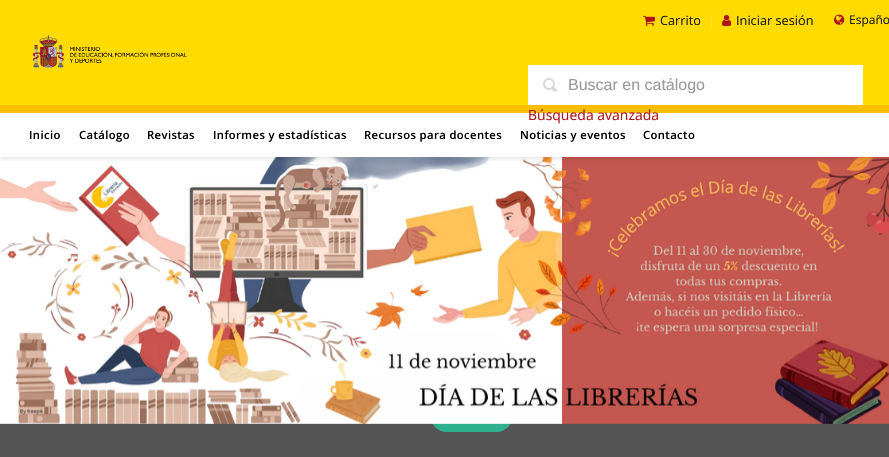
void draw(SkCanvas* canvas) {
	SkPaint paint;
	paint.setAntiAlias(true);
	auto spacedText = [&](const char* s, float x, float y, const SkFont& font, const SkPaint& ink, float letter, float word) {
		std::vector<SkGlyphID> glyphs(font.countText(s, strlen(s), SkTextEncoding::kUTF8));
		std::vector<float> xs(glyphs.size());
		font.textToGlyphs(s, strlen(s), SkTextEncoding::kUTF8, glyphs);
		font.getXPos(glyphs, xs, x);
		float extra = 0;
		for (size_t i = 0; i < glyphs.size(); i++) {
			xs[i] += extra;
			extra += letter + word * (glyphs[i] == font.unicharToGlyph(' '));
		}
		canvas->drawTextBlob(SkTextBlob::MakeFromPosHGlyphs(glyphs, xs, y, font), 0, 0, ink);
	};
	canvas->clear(0xff555555);
	paint.setColor(0xff2fb18d);
	canvas->drawRoundRect(SkRect::MakeXYWH(430, 398, 83, 34), 17, 17, paint);
	canvas->drawImageRect(SkImages::DeferredFromEncodedData(SkData::MakeFromFileName("img6.png")), SkRect::MakeXYWH(0, 157, 889, 267), SkSamplingOptions());
	paint.setColor(0x1a000000);
	paint.setMaskFilter(SkMaskFilter::MakeBlur(kNormal_SkBlurStyle, 2));
	canvas->drawRect(SkRect::MakeXYWH(0, 2, 889, 157), paint);
	paint.setMaskFilter(nullptr);
	paint.setColor(0xffffffff);
	canvas->drawRect(SkRect::MakeXYWH(0, 113, 889, 44), paint);
	paint.setColor(0xffffdb00);
	canvas->drawRect(SkRect::MakeXYWH(0, 0, 889, 105), paint);
	canvas->drawImageRect(SkImages::DeferredFromEncodedData(SkData::MakeFromFileName("img1.png")), SkRect::MakeXYWH(643, 15, 12, 11), SkSamplingOptions());
	SkFont f1(fontMgr->matchFamilyStyle("Open Sans", SkFontStyle::Normal()), 12.75);
	f1.setSubpixel(true);
	paint.setColor(0xff1d1d1b);
	canvas->drawString("Carrito", 660, 25, f1, paint);
	paint.setColor(0xffffe233);
	canvas->drawRect(SkRect::MakeXYWH(711, 15, 1, 13), paint);
	canvas->drawImageRect(SkImages::DeferredFromEncodedData(SkData::MakeFromFileName("img2.png")), SkRect::MakeXYWH(722, 15, 10, 11), SkSamplingOptions());
	paint.setColor(0xff1d1d1b);
	canvas->drawString("Iniciar sesión", 736, 25, f1, paint);
	canvas->drawImageRect(SkImages::DeferredFromEncodedData(SkData::MakeFromFileName("img3.png")), SkRect::MakeXYWH(834, 14, 11, 11), SkSamplingOptions());
	SkFont f2(fontMgr->matchFamilyStyle("Open Sans", SkFontStyle::Normal()), 12);
	f2.setSubpixel(true);
	canvas->drawString("Españo", 849, 24, f2, paint);
	canvas->drawImageRect(SkImages::DeferredFromEncodedData(SkData::MakeFromFileName("img4.png")), SkRect::MakeXYWH(32, 34, 155, 34), SkSamplingOptions());
	paint.setColor(0xffffffff);
	canvas->drawRect(SkRect::MakeXYWH(528, 65, 335, 40), paint);
	canvas->drawImageRect(SkImages::DeferredFromEncodedData(SkData::MakeFromFileName("img5.png")), SkRect::MakeXYWH(543, 78, 14, 14), SkSamplingOptions());
	SkFont f3(fontMgr->matchFamilyStyle("Liberation Sans", SkFontStyle::Normal()), 16);
	f3.setSubpixel(true);
	paint.setColor(0xff999999);
	canvas->drawString("Buscar en catálogo", 568, 90, f3, paint);
	paint.setColor(0xfffabd00);
	canvas->drawRect(SkRect::MakeXYWH(0, 105, 889, 8), paint);
	SkFont f4(fontMgr->matchFamilyStyle("Open Sans", SkFontStyle::Normal()), 14);
	f4.setSubpixel(true);
	paint.setColor(0xffad1519);
	canvas->drawString("Búsqueda avanzada", 528, 120, f4, paint);
	SkFont f5(fontMgr->matchFamilyStyle("Open Sans", SkFontStyle(600, SkFontStyle::kNormal_Width, SkFontStyle::kUpright_Slant)), 11.25);
	f5.setSubpixel(true);
	paint.setColor(0xff000000);
	spacedText("Inicio", 29, 139, f5, paint, 0.4, 0);
	spacedText("Catálogo", 79, 139, f5, paint, 0.4, 0);
	spacedText("Revistas", 147, 139, f5, paint, 0.4, 0);
	spacedText("Informes y estadísticas", 213, 139, f5, paint, 0.4, 0);
	spacedText("Recursos para docentes", 364, 139, f5, paint, 0.4, 0);
	spacedText("Noticias y eventos", 520, 139, f5, paint, 0.4, 0);
	spacedText("Contacto", 643, 139, f5, paint, 0.4, 0);
}
